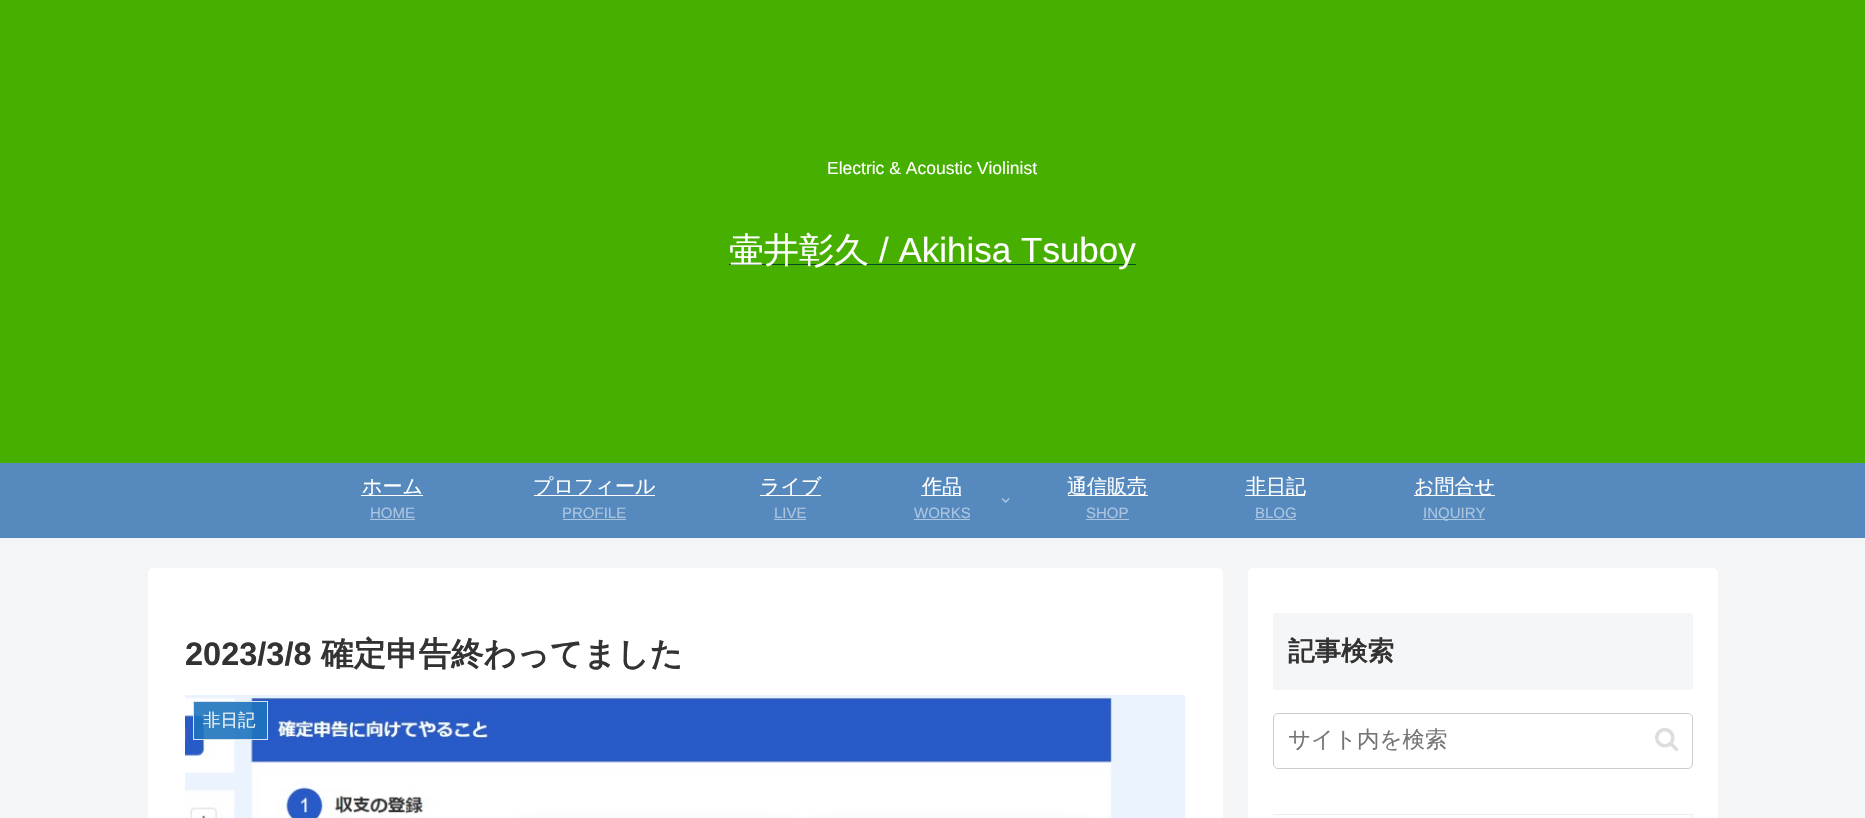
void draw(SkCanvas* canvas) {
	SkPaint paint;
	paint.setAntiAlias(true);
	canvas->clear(0xfff4f5f7);
	paint.setColor(0xff46af00);
	canvas->drawRect(SkRect::MakeXYWH(0, 0, 1865, 463), paint);
	SkFont f1(fontMgr->matchFamilyStyle("Liberation Sans", SkFontStyle::Normal()), 17.5);
	f1.setSubpixel(true);
	paint.setColor(0xffffffff);
	canvas->drawString("Electric & Acoustic Violinist", 827, 174, f1, paint);
	paint.setColor(0xff004d25);
	canvas->drawRect(SkRect::MakeXYWH(729, 264, 407, 1), paint);
	SkFont f2(fontMgr->matchFamilyStyle("WenQuanYi Zen Hei", SkFontStyle(500, SkFontStyle::kNormal_Width, SkFontStyle::kUpright_Slant)), 35);
	f2.setSubpixel(true);
	paint.setColor(0xffffffff);
	canvas->drawString("壷井彰久", 729, 262, f2, paint);
	SkFont f3(fontMgr->matchFamilyStyle("Liberation Sans", SkFontStyle::Normal()), 35);
	f3.setSubpixel(true);
	canvas->drawString("/ Akihisa Tsuboy", 879, 262, f3, paint);
	paint.setColor(0xff568abf);
	canvas->drawRect(SkRect::MakeXYWH(0, 463, 1865, 75), paint);
	paint.setColor(0xffffffff);
	canvas->drawRect(SkRect::MakeXYWH(361, 495, 62, 1), paint);
	SkFont f4(fontMgr->matchFamilyStyle("WenQuanYi Zen Hei", SkFontStyle(500, SkFontStyle::kNormal_Width, SkFontStyle::kUpright_Slant)), 20);
	f4.setSubpixel(true);
	canvas->drawString("ホーム", 362, 493, f4, paint);
	SkFont f5(fontMgr->matchFamilyStyle("Liberation Sans", SkFontStyle::Normal()), 15);
	f5.setSubpixel(true);
	paint.setColor(0xffabc5df);
	canvas->drawString("HOME", 370, 518, f5, paint);
	canvas->drawRect(SkRect::MakeXYWH(370, 519, 45, 1), paint);
	paint.setColor(0xffffffff);
	canvas->drawRect(SkRect::MakeXYWH(534, 495, 121, 1), paint);
	canvas->drawString("プロフィール", 533, 493, f4, paint);
	paint.setColor(0xffabc5df);
	canvas->drawString("PROFILE", 562, 518, f5, paint);
	canvas->drawRect(SkRect::MakeXYWH(563, 519, 63, 1), paint);
	paint.setColor(0xffffffff);
	canvas->drawRect(SkRect::MakeXYWH(760, 495, 61, 1), paint);
	canvas->drawString("ライブ", 760, 493, f4, paint);
	paint.setColor(0xffabc5df);
	canvas->drawString("LIVE", 774, 518, f5, paint);
	canvas->drawRect(SkRect::MakeXYWH(774, 519, 32, 1), paint);
	paint.setColor(0xffffffff);
	canvas->drawRect(SkRect::MakeXYWH(921, 495, 40, 1), paint);
	canvas->drawString("作品", 922, 493, f4, paint);
	paint.setColor(0xffabc5df);
	canvas->drawString("WORKS", 914, 518, f5, paint);
	canvas->drawRect(SkRect::MakeXYWH(914, 519, 56, 1), paint);
	canvas->drawImageRect(SkImages::DeferredFromEncodedData(SkData::MakeFromFileName("img1.png")), SkRect::MakeXYWH(1001, 498, 9, 5), SkSamplingOptions());
	paint.setColor(0xffffffff);
	canvas->drawRect(SkRect::MakeXYWH(1068, 495, 80, 1), paint);
	canvas->drawString("通信販売", 1067, 493, f4, paint);
	paint.setColor(0xffabc5df);
	canvas->drawString("SHOP", 1086, 518, f5, paint);
	canvas->drawRect(SkRect::MakeXYWH(1086, 519, 43, 1), paint);
	paint.setColor(0xffffffff);
	canvas->drawRect(SkRect::MakeXYWH(1245, 495, 60, 1), paint);
	canvas->drawString("非日記", 1246, 493, f4, paint);
	paint.setColor(0xffabc5df);
	canvas->drawString("BLOG", 1255, 518, f5, paint);
	canvas->drawRect(SkRect::MakeXYWH(1255, 519, 41, 1), paint);
	paint.setColor(0xffffffff);
	canvas->drawRect(SkRect::MakeXYWH(1414, 495, 81, 1), paint);
	canvas->drawString("お問合せ", 1414, 493, f4, paint);
	paint.setColor(0xffabc5df);
	canvas->drawRect(SkRect::MakeXYWH(1423, 519, 62, 1), paint);
	canvas->drawString("INQUIRY", 1423, 518, f5, paint);
	paint.setColor(0xffffffff);
	canvas->drawRoundRect(SkRect::MakeXYWH(148, 568, 1075, 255), 5, 5, paint);
	SkFont f6(fontMgr->matchFamilyStyle("Liberation Sans", SkFontStyle::Bold()), 32.5);
	f6.setSubpixel(true);
	paint.setColor(0xff333333);
	canvas->drawString("2023/3/8", 185, 665, f6, paint);
	SkFont f7(fontMgr->matchFamilyStyle("WenQuanYi Zen Hei", SkFontStyle::Bold()), 32.5);
	f7.setSubpixel(true);
	canvas->drawString("確定申告終わってました", 321, 665, f7, paint);
	canvas->drawImageRect(SkImages::DeferredFromEncodedData(SkData::MakeFromFileName("img2.png")), SkRect::MakeXYWH(185, 695, 1000, 123), SkSamplingOptions());
	paint.setColor(0xe61e73be);
	canvas->drawRect(SkRect::MakeXYWH(193, 701, 75, 39), paint);
	paint.setStroke(true);
	paint.setStrokeWidth(1);
	paint.setColor(0xe6eeeeee);
	canvas->drawRect(SkRect::MakeXYWH(193.5, 701.5, 74, 38), paint);
	SkFont f8(fontMgr->matchFamilyStyle("WenQuanYi Zen Hei", SkFontStyle(500, SkFontStyle::kNormal_Width, SkFontStyle::kUpright_Slant)), 17.5);
	f8.setSubpixel(true);
	paint.setStroke(false);
	paint.setColor(0xffebf2f9);
	canvas->drawString("非日記", 203, 726, f8, paint);
	paint.setColor(0xffffffff);
	canvas->drawRoundRect(SkRect::MakeXYWH(1248, 568, 470, 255), 5, 5, paint);
	paint.setColor(0xfff5f6f7);
	canvas->drawRoundRect(SkRect::MakeXYWH(1273, 613, 420, 77), 2.5, 2.5, paint);
	SkFont f9(fontMgr->matchFamilyStyle("WenQuanYi Zen Hei", SkFontStyle::Bold()), 26.5);
	f9.setSubpixel(true);
	paint.setColor(0xff333333);
	canvas->drawString("記事検索", 1288, 660, f9, paint);
	paint.setStroke(true);
	paint.setColor(0xffcccccc);
	canvas->drawRoundRect(SkRect::MakeXYWH(1273.5, 713.5, 419, 55), 4.5, 4.5, paint);
	SkFont f10(fontMgr->matchFamilyStyle("WenQuanYi Zen Hei", SkFontStyle(500, SkFontStyle::kNormal_Width, SkFontStyle::kUpright_Slant)), 22.5);
	f10.setSubpixel(true);
	paint.setStroke(false);
	paint.setColor(0xff757575);
	canvas->drawString("サイト内を検索", 1288, 747, f10, paint);
	canvas->drawImageRect(SkImages::DeferredFromEncodedData(SkData::MakeFromFileName("img3.png")), SkRect::MakeXYWH(1655, 728, 24, 23), SkSamplingOptions());
	paint.setColor(0xffeeeeee);
	canvas->drawRect(SkRect::MakeXYWH(1273, 814, 420, 1), paint);
	canvas->drawRect(SkRect::MakeXYWH(1691, 814, 1, 4), paint);
}
